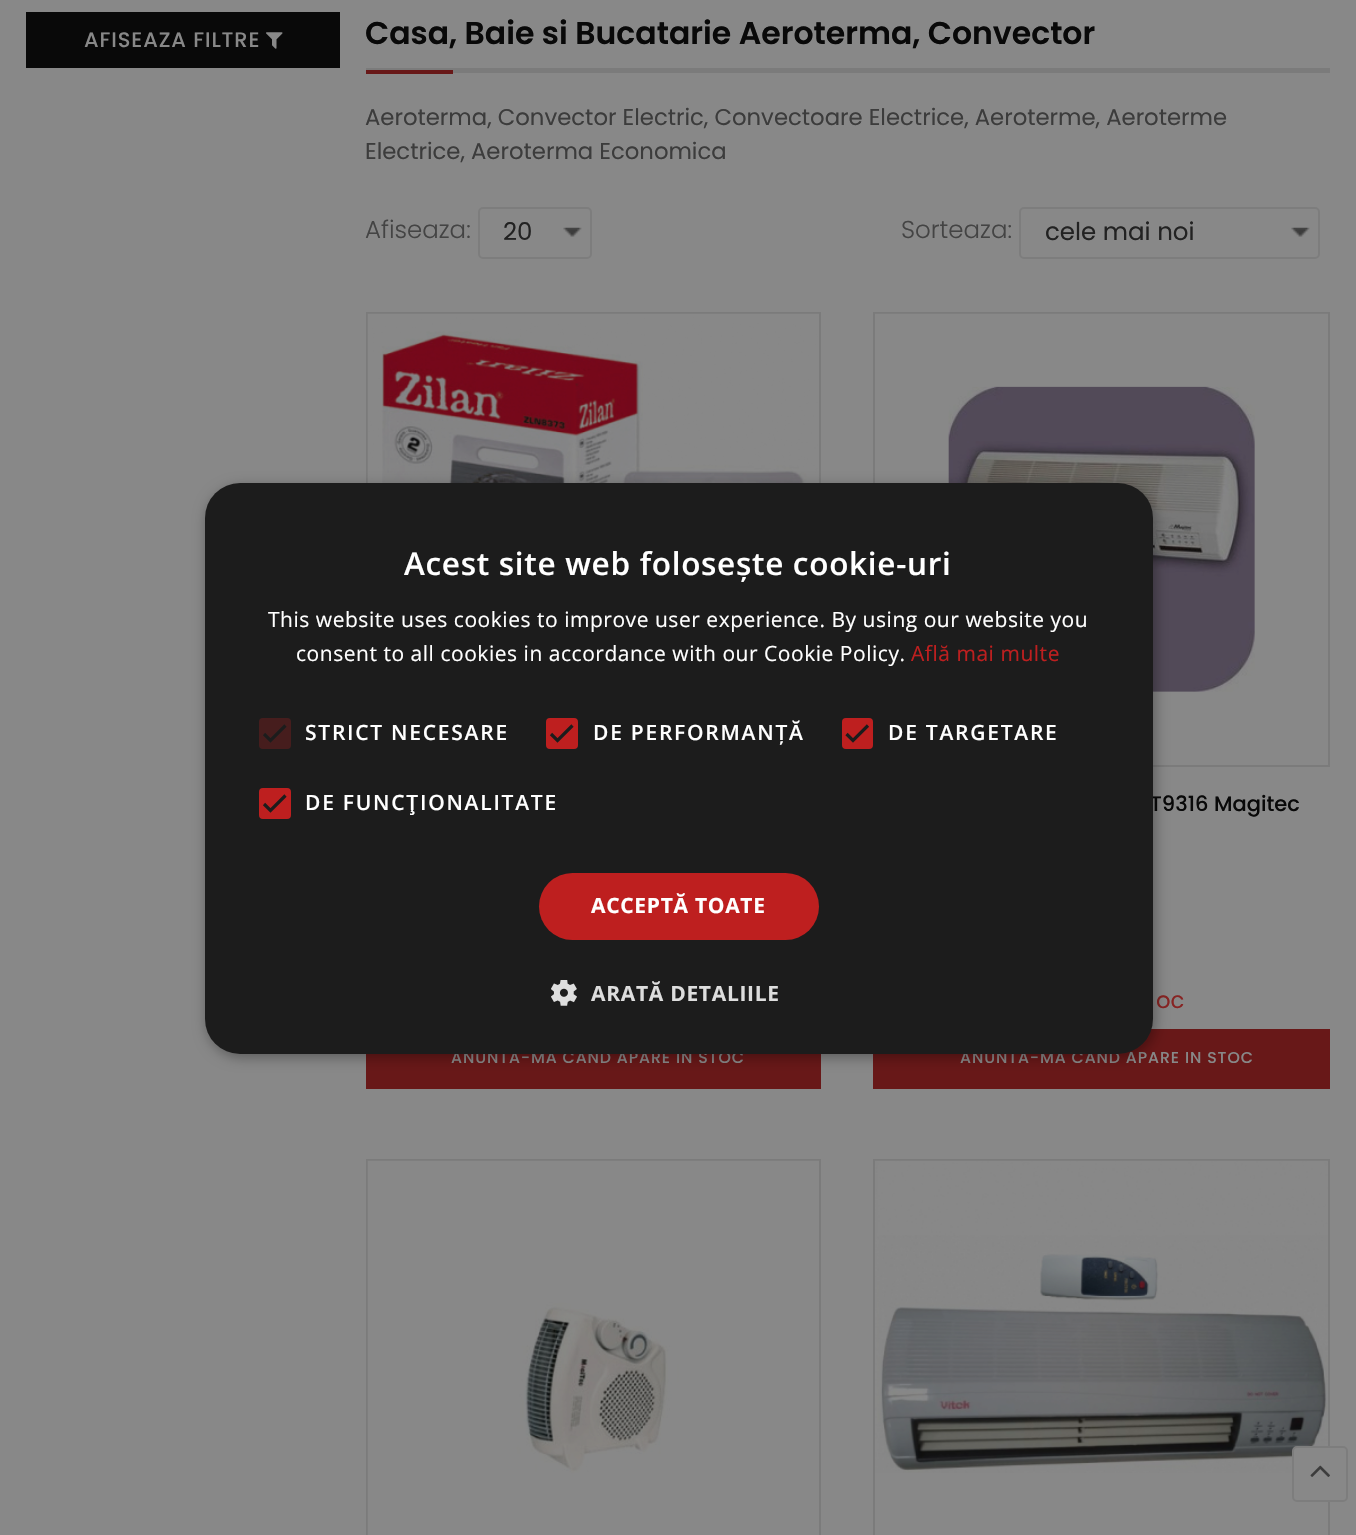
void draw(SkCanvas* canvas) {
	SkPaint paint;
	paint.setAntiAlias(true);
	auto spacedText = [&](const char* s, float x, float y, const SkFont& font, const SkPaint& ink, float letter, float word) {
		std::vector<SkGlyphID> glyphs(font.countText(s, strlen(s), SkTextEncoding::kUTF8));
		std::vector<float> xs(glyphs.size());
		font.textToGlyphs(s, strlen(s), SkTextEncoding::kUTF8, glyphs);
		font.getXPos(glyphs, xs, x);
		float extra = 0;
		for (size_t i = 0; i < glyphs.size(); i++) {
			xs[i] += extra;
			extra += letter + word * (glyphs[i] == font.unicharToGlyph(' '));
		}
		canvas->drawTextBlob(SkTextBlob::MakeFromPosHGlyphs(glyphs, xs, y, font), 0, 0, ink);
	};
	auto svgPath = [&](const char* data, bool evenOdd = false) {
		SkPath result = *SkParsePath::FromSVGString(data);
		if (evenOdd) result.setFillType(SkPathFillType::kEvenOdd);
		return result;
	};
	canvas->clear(0xff888888);
	paint.setColor(0xff090909);
	canvas->drawRect(SkRect::MakeXYWH(26, 12, 314, 56), paint);
	SkFont f1(fontMgr->matchFamilyStyle("Poppins", SkFontStyle(500, SkFontStyle::kNormal_Width, SkFontStyle::kUpright_Slant)), 21);
	f1.setSubpixel(true);
	paint.setColor(0xff888888);
	spacedText("AFISEAZA FILTRE", 84, 47, f1, paint, 0.9, 0);
	canvas->drawImageRect(SkImages::DeferredFromEncodedData(SkData::MakeFromFileName("img1.png")), SkRect::MakeXYWH(266, 32, 17, 17), SkSamplingOptions());
	paint.setColor(0xff7b7b7b);
	canvas->drawRect(SkRect::MakeXYWH(366, 68, 964, 5), paint);
	SkFont f2(fontMgr->matchFamilyStyle("Poppins", SkFontStyle(600, SkFontStyle::kNormal_Width, SkFontStyle::kUpright_Slant)), 31.5);
	f2.setSubpixel(true);
	paint.setColor(0xff090909);
	canvas->drawString("Casa, Baie si Bucatarie Aeroterma, Convector", 365, 44, f2, paint);
	paint.setColor(0xff681818);
	canvas->drawRect(SkRect::MakeXYWH(366, 70, 87, 4), paint);
	SkFont f3(fontMgr->matchFamilyStyle("Poppins", SkFontStyle::Normal()), 22.75);
	f3.setSubpixel(true);
	paint.setColor(0xff3c3c3c);
	canvas->drawString("Aeroterma, Convector Electric, Convectoare Electrice, Aeroterme, Aeroterme", 365, 125, f3, paint);
	canvas->drawString("Electrice, Aeroterma Economica", 365, 159, f3, paint);
	SkFont f4(fontMgr->matchFamilyStyle("Poppins", SkFontStyle(300, SkFontStyle::kNormal_Width, SkFontStyle::kUpright_Slant)), 24.5);
	f4.setSubpixel(true);
	paint.setColor(0xff444444);
	canvas->drawString("Afiseaza:", 365, 238, f4, paint);
	canvas->drawImageRect(SkImages::DeferredFromEncodedData(SkData::MakeFromFileName("img2.png")), SkRect::MakeXYWH(563, 227, 19, 10), SkSamplingOptions());
	paint.setStroke(true);
	paint.setStrokeWidth(2);
	paint.setColor(0xff7d7d7d);
	canvas->drawRoundRect(SkRect::MakeXYWH(479, 208, 112, 50), 4, 4, paint);
	SkFont f5(fontMgr->matchFamilyStyle("Poppins", SkFontStyle::Normal()), 24.5);
	f5.setSubpixel(true);
	paint.setStroke(false);
	paint.setColor(0xff222222);
	canvas->drawString("20", 503, 240, f5, paint);
	paint.setColor(0xff444444);
	canvas->drawString("Sorteaza:", 901, 238, f4, paint);
	canvas->drawImageRect(SkImages::DeferredFromEncodedData(SkData::MakeFromFileName("img3.png")), SkRect::MakeXYWH(1291, 227, 19, 10), SkSamplingOptions());
	paint.setStroke(true);
	paint.setColor(0xff7d7d7d);
	canvas->drawRoundRect(SkRect::MakeXYWH(1020, 208, 299, 50), 4, 4, paint);
	paint.setStroke(false);
	paint.setColor(0xff222222);
	canvas->drawString("cele mai noi", 1045, 240, f5, paint);
	paint.setStroke(true);
	paint.setColor(0xff7b7b7b);
	canvas->drawRect(SkRect::MakeXYWH(367, 313, 453, 453), paint);
	canvas->drawImageRect(SkImages::DeferredFromEncodedData(SkData::MakeFromFileName("img4.png")), SkRect::MakeXYWH(367, 313, 452, 170), SkSamplingOptions());
	paint.setStroke(false);
	paint.setColor(0xff681818);
	canvas->drawRect(SkRect::MakeXYWH(366, 1054, 455, 35), paint);
	SkFont f6(fontMgr->matchFamilyStyle("Poppins", SkFontStyle(500, SkFontStyle::kNormal_Width, SkFontStyle::kUpright_Slant)), 15.75);
	f6.setSubpixel(true);
	paint.setColor(0xff888888);
	spacedText("ANUNTA-MA CAND APARE IN STOC", 451, 1063, f6, paint, 0.9, 0);
	paint.setStroke(true);
	paint.setColor(0xff7b7b7b);
	canvas->drawRect(SkRect::MakeXYWH(874, 313, 455, 453), paint);
	canvas->drawImageRect(SkImages::DeferredFromEncodedData(SkData::MakeFromFileName("img5.png")), SkRect::MakeXYWH(875, 313, 453, 379), SkSamplingOptions());
	paint.setStroke(false);
	paint.setColor(0xff090909);
	canvas->drawString("T9316 Magitec", 1150, 811, f1, paint);
	paint.setColor(0xff872423);
	canvas->drawString("oc", 1156, 1008, f3, paint);
	paint.setColor(0xff681818);
	canvas->drawRect(SkRect::MakeXYWH(873, 1029, 457, 60), paint);
	paint.setColor(0xff888888);
	spacedText("ANUNTA-MA CAND APARE IN STOC", 960, 1063, f6, paint, 0.9, 0);
	paint.setStroke(true);
	paint.setColor(0xff7b7b7b);
	canvas->drawRect(SkRect::MakeXYWH(367, 1160, 453, 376), paint);
	canvas->drawImageRect(SkImages::DeferredFromEncodedData(SkData::MakeFromFileName("img6.png")), SkRect::MakeXYWH(367, 1160, 452, 375), SkSamplingOptions());
	canvas->drawRect(SkRect::MakeXYWH(874, 1160, 455, 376), paint);
	canvas->drawImageRect(SkImages::DeferredFromEncodedData(SkData::MakeFromFileName("img7.png")), SkRect::MakeXYWH(875, 1160, 453, 313), SkSamplingOptions());
	paint.setStroke(false);
	paint.setColor(0xff888888);
	canvas->drawRoundRect(SkRect::MakeXYWH(1293, 1447, 54, 54), 4, 4, paint);
	paint.setStroke(true);
	paint.setColor(0xff7d7d7d);
	canvas->drawRoundRect(SkRect::MakeXYWH(1293, 1447, 54, 54), 4, 4, paint);
	canvas->drawImageRect(SkImages::DeferredFromEncodedData(SkData::MakeFromFileName("img8.png")), SkRect::MakeXYWH(1310, 1465, 20, 12), SkSamplingOptions());
	paint.setStroke(false);
	paint.setColor(0x59000000);
	paint.setMaskFilter(SkMaskFilter::MakeBlur(kNormal_SkBlurStyle, 7));
	canvas->drawRoundRect(SkRect::MakeXYWH(207, 487, 948, 570), 35, 35, paint);
	paint.setMaskFilter(nullptr);
	paint.setColor(0xff1c1c1c);
	canvas->drawRoundRect(SkRect::MakeXYWH(205, 483, 948, 571), 35, 35, paint);
	SkFont f7(fontMgr->matchFamilyStyle("Open Sans", SkFontStyle(600, SkFontStyle::kNormal_Width, SkFontStyle::kUpright_Slant)), 31.5);
	f7.setSubpixel(true);
	paint.setColor(0xffffffff);
	spacedText("Acest site web folosește cookie-uri", 404, 575, f7, paint, 0.7, 0);
	SkFont f8(fontMgr->matchFamilyStyle("Open Sans", SkFontStyle::Normal()), 21);
	f8.setSubpixel(true);
	spacedText("This website uses cookies to improve user experience. By using our website you", 268, 627, f8, paint, 0.53, 0);
	spacedText("consent to all cookies in accordance with our Cookie Policy.", 296, 661, f8, paint, 0.53, 0);
	paint.setColor(0xffbe1f1f);
	spacedText("Află mai multe", 911, 661, f8, paint, 0.53, 0);
	paint.setColor(0xff461d1d);
	canvas->drawRoundRect(SkRect::MakeXYWH(259, 718, 32, 31), 4, 4, paint);
	paint.setStroke(true);
	paint.setStrokeWidth(3.2);
	paint.setColor(0xff1c1c1c);
	canvas->drawPath(svgPath("M264 734L270.5 740.5L285.5 725.5"), paint);
	SkFont f9(fontMgr->matchFamilyStyle("Open Sans", SkFontStyle(600, SkFontStyle::kNormal_Width, SkFontStyle::kUpright_Slant)), 21);
	f9.setSubpixel(true);
	paint.setStroke(false);
	paint.setColor(0xffffffff);
	spacedText("STRICT NECESARE", 305, 740, f9, paint, 1.75, 0);
	paint.setColor(0xffbe1f1f);
	canvas->drawRoundRect(SkRect::MakeXYWH(548, 720, 28, 27), 2, 2, paint);
	paint.setStroke(true);
	paint.setStrokeWidth(4);
	canvas->drawRoundRect(SkRect::MakeXYWH(548, 720, 28, 27), 2, 2, paint);
	paint.setStrokeWidth(3.2);
	paint.setColor(0xff1c1c1c);
	canvas->drawPath(svgPath("M551 734L557.5 740.5L572.5 725.5"), paint);
	paint.setStroke(false);
	paint.setColor(0xffffffff);
	spacedText("DE PERFORMANȚĂ", 593, 740, f9, paint, 1.75, 0);
	paint.setColor(0xffbe1f1f);
	canvas->drawRoundRect(SkRect::MakeXYWH(844, 720, 27, 27), 2, 2, paint);
	paint.setStroke(true);
	paint.setStrokeWidth(4);
	canvas->drawRoundRect(SkRect::MakeXYWH(844, 720, 27, 27), 2, 2, paint);
	paint.setStrokeWidth(3.2);
	paint.setColor(0xff1c1c1c);
	canvas->drawPath(svgPath("M846.5 734L853 740.5L868 725.5"), paint);
	paint.setStroke(false);
	paint.setColor(0xffffffff);
	spacedText("DE TARGETARE", 888, 740, f9, paint, 1.75, 0);
	paint.setColor(0xffbe1f1f);
	canvas->drawRoundRect(SkRect::MakeXYWH(261, 790, 28, 27), 2, 2, paint);
	paint.setStroke(true);
	paint.setStrokeWidth(4);
	canvas->drawRoundRect(SkRect::MakeXYWH(261, 790, 28, 27), 2, 2, paint);
	paint.setStrokeWidth(3.2);
	paint.setColor(0xff1c1c1c);
	canvas->drawPath(svgPath("M264 804L270.5 810.5L285.5 795.5"), paint);
	paint.setStroke(false);
	paint.setColor(0xffffffff);
	spacedText("DE FUNCŢIONALITATE", 305, 810, f9, paint, 1.75, 0);
	paint.setColor(0xffbe1f1f);
	canvas->drawRoundRect(SkRect::MakeXYWH(539, 873, 280, 67), 33.5, 33.5, paint);
	SkFont f10(fontMgr->matchFamilyStyle("Open Sans", SkFontStyle::Bold()), 21);
	f10.setSubpixel(true);
	paint.setColor(0xffffffff);
	spacedText("ACCEPTĂ TOATE", 591, 913, f10, paint, 0.7, 0);
	canvas->drawImageRect(SkImages::DeferredFromEncodedData(SkData::MakeFromFileName("img9.png")), SkRect::MakeXYWH(551, 980, 26, 26), SkSamplingOptions());
	paint.setColor(0xffdddddd);
	spacedText("ARATĂ DETALIILE", 591, 1001, f10, paint, 0.7, 0);
}
